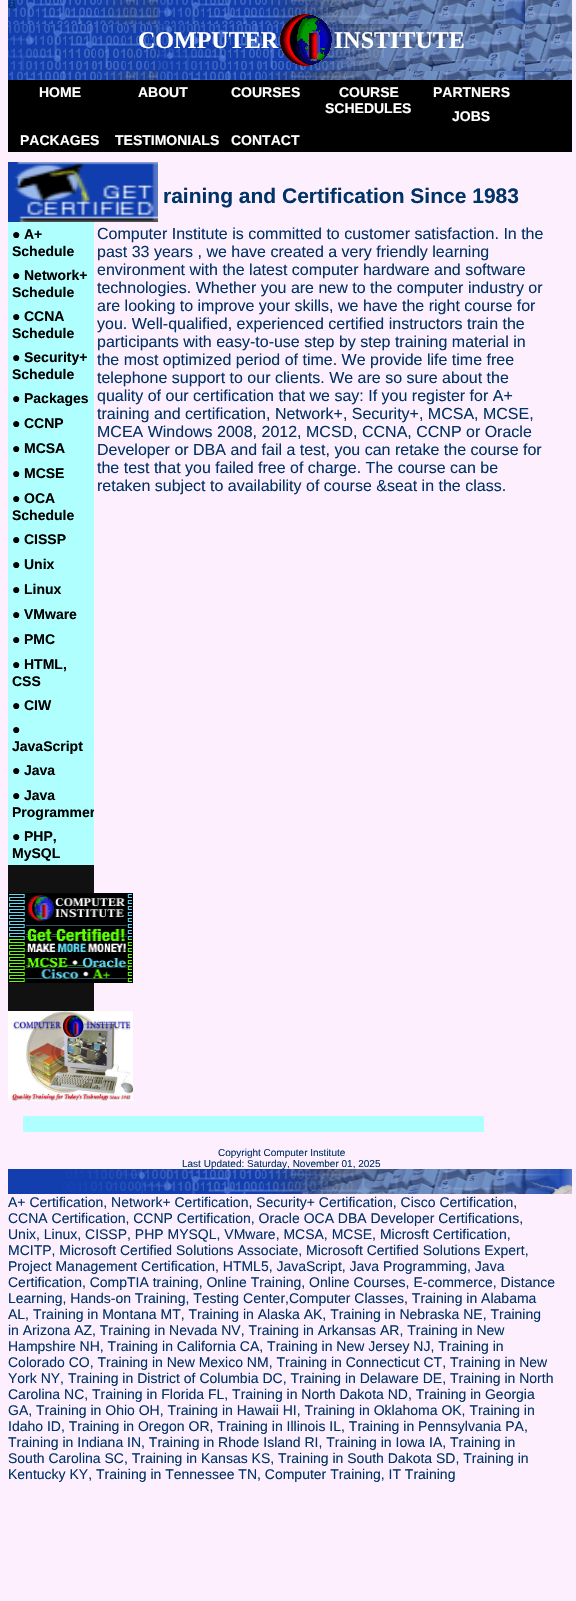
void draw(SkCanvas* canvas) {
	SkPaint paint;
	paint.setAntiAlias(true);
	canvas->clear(0xfffeefff);
	canvas->drawImageRect(SkImages::DeferredFromEncodedData(SkData::MakeFromFileName("img1.png")), SkRect::MakeXYWH(8, 0, 564, 80), SkSamplingOptions());
	SkFont f1(fontMgr->matchFamilyStyle("Liberation Sans", SkFontStyle::Normal()), 14);
	f1.setSubpixel(true);
	paint.setColor(0xff003366);
	canvas->drawString("a", 8, 8, f1, paint);
	SkFont f2(fontMgr->matchFamilyStyle("Liberation Serif", SkFontStyle::Bold()), 24);
	f2.setSubpixel(true);
	paint.setColor(0xffffffff);
	canvas->drawString("COMPUTER", 138, 48, f2, paint);
	canvas->drawImageRect(SkImages::DeferredFromEncodedData(SkData::MakeFromFileName("img2.png")), SkRect::MakeXYWH(280, 14, 52, 52), SkSamplingOptions());
	canvas->drawString("INSTITUTE", 334, 48, f2, paint);
	paint.setColor(0xff000000);
	canvas->drawRect(SkRect::MakeXYWH(8, 80, 564, 72), paint);
	SkFont f3(fontMgr->matchFamilyStyle("Liberation Sans", SkFontStyle::Bold()), 14);
	f3.setSubpixel(true);
	paint.setColor(0xffffffff);
	canvas->drawString("HOME", 39, 97, f3, paint);
	canvas->drawString("ABOUT", 138, 97, f3, paint);
	canvas->drawString("COURSES", 231, 97, f3, paint);
	canvas->drawString("COURSE", 339, 97, f3, paint);
	canvas->drawString("SCHEDULES", 325, 113, f3, paint);
	canvas->drawString("PARTNERS", 433, 97, f3, paint);
	canvas->drawString("JOBS", 452, 121, f3, paint);
	canvas->drawString("PACKAGES", 20, 145, f3, paint);
	canvas->drawString("TESTIMONIALS", 115, 145, f3, paint);
	canvas->drawString("CONTACT", 231, 145, f3, paint);
	SkFont f4(fontMgr->matchFamilyStyle("Liberation Sans", SkFontStyle::Bold()), 21);
	f4.setSubpixel(true);
	paint.setColor(0xff003366);
	canvas->drawString("raining and Certification Since 1983", 163, 203, f4, paint);
	canvas->drawImageRect(SkImages::DeferredFromEncodedData(SkData::MakeFromFileName("img3.png")), SkRect::MakeXYWH(8, 162, 150, 60), SkSamplingOptions());
	paint.setColor(0xff111111);
	canvas->drawRect(SkRect::MakeXYWH(8, 865, 86, 146), paint);
	paint.setColor(0xffafffff);
	canvas->drawRect(SkRect::MakeXYWH(8, 222, 86, 643), paint);
	SkFont f5(fontMgr->matchFamilyStyle("Liberation Serif", SkFontStyle::Bold()), 14);
	f5.setSubpixel(true);
	paint.setColor(0xff000000);
	canvas->drawString("●", 12, 239, f5, paint);
	canvas->drawString("A+", 24, 239, f3, paint);
	canvas->drawString("Schedule", 12, 256, f3, paint);
	canvas->drawString("●", 12, 280, f5, paint);
	canvas->drawString("Network+", 24, 280, f3, paint);
	canvas->drawString("Schedule", 12, 297, f3, paint);
	canvas->drawString("●", 12, 321, f5, paint);
	canvas->drawString("CCNA", 24, 321, f3, paint);
	canvas->drawString("Schedule", 12, 338, f3, paint);
	canvas->drawString("●", 12, 362, f5, paint);
	canvas->drawString("Security+", 24, 362, f3, paint);
	canvas->drawString("Schedule", 12, 379, f3, paint);
	canvas->drawString("●", 12, 403, f5, paint);
	canvas->drawString("Packages", 24, 403, f3, paint);
	canvas->drawString("●", 12, 428, f5, paint);
	canvas->drawString("CCNP", 24, 428, f3, paint);
	canvas->drawString("●", 12, 453, f5, paint);
	canvas->drawString("MCSA", 24, 453, f3, paint);
	canvas->drawString("●", 12, 478, f5, paint);
	canvas->drawString("MCSE", 24, 478, f3, paint);
	canvas->drawString("●", 12, 503, f5, paint);
	canvas->drawString("OCA", 24, 503, f3, paint);
	canvas->drawString("Schedule", 12, 520, f3, paint);
	canvas->drawString("●", 12, 544, f5, paint);
	canvas->drawString("CISSP", 24, 544, f3, paint);
	canvas->drawString("●", 12, 569, f5, paint);
	canvas->drawString("Unix", 24, 569, f3, paint);
	canvas->drawString("●", 12, 594, f5, paint);
	canvas->drawString("Linux", 24, 594, f3, paint);
	canvas->drawString("●", 12, 619, f5, paint);
	canvas->drawString("VMware", 24, 619, f3, paint);
	canvas->drawString("●", 12, 644, f5, paint);
	canvas->drawString("PMC", 24, 644, f3, paint);
	canvas->drawString("●", 12, 669, f5, paint);
	canvas->drawString("HTML,", 24, 669, f3, paint);
	canvas->drawString("CSS", 12, 686, f3, paint);
	canvas->drawString("●", 12, 710, f5, paint);
	canvas->drawString("CIW", 24, 710, f3, paint);
	canvas->drawString("●", 12, 734, f5, paint);
	canvas->drawString("JavaScript", 12, 751, f3, paint);
	canvas->drawString("●", 12, 775, f5, paint);
	canvas->drawString("Java", 24, 775, f3, paint);
	canvas->drawString("●", 12, 800, f5, paint);
	canvas->drawString("Java", 24, 800, f3, paint);
	canvas->save();
	canvas->clipRect(SkRect::MakeXYWH(8, 222, 86, 643));
	canvas->drawString("Programmer", 12, 817, f3, paint);
	canvas->restore();
	canvas->drawString("●", 12, 841, f5, paint);
	canvas->drawString("PHP,", 24, 841, f3, paint);
	canvas->drawString("MySQL", 12, 858, f3, paint);
	canvas->drawImageRect(SkImages::DeferredFromEncodedData(SkData::MakeFromFileName("img4.png")), SkRect::MakeXYWH(8, 893, 125, 90), SkSamplingOptions());
	canvas->drawImageRect(SkImages::DeferredFromEncodedData(SkData::MakeFromFileName("img5.png")), SkRect::MakeXYWH(8, 1011, 125, 90), SkSamplingOptions());
	SkFont f6(fontMgr->matchFamilyStyle("Liberation Sans", SkFontStyle::Normal()), 16);
	f6.setSubpixel(true);
	paint.setColor(0xff003366);
	canvas->drawString("Computer Institute is committed to customer satisfaction. In the", 97, 239, f6, paint);
	canvas->drawString("past 33 years , we have created a very friendly learning", 97, 257, f6, paint);
	canvas->drawString("environment with the latest computer hardware and software", 97, 275, f6, paint);
	canvas->drawString("technologies. Whether you are new to the computer industry or", 97, 293, f6, paint);
	canvas->drawString("are looking to improve your skills, we have the right course for", 97, 311, f6, paint);
	canvas->drawString("you. Well-qualified, experienced certified instructors train the", 97, 329, f6, paint);
	canvas->drawString("participants with easy-to-use step by step training material in", 97, 347, f6, paint);
	canvas->drawString("the most optimized period of time. We provide life time free", 97, 365, f6, paint);
	canvas->drawString("telephone support to our clients. We are so sure about the", 97, 383, f6, paint);
	canvas->drawString("quality of our certification that we say: If you register for A+", 97, 401, f6, paint);
	canvas->drawString("training and certification, Network+, Security+, MCSA, MCSE,", 97, 419, f6, paint);
	canvas->drawString("MCEA Windows 2008, 2012, MCSD, CCNA, CCNP or Oracle", 97, 437, f6, paint);
	canvas->drawString("Developer or DBA and fail a test, you can retake the course for", 97, 455, f6, paint);
	canvas->drawString("the test that you failed free of charge. The course can be", 97, 473, f6, paint);
	canvas->drawString("retaken subject to availability of course &seat in the class.", 97, 491, f6, paint);
	paint.setColor(0xffafffff);
	canvas->drawRect(SkRect::MakeXYWH(23, 1116, 461, 16), paint);
	SkFont f7(fontMgr->matchFamilyStyle("Liberation Sans", SkFontStyle::Normal()), 10);
	f7.setSubpixel(true);
	paint.setColor(0xff003366);
	canvas->drawString("Copyright Computer Institute", 218, 1156, f7, paint);
	canvas->drawString("Last Updated: Saturday, November 01, 2025", 182, 1167, f7, paint);
	canvas->drawImageRect(SkImages::DeferredFromEncodedData(SkData::MakeFromFileName("img6.png")), SkRect::MakeXYWH(8, 1169, 564, 25), SkSamplingOptions());
	canvas->drawString("A+ Certification, Network+ Certification, Security+ Certification, Cisco Certification,", 8, 1207, f1, paint);
	canvas->drawString("CCNA Certification, CCNP Certification, Oracle OCA DBA Developer Certifications,", 8, 1223, f1, paint);
	canvas->drawString("Unix, Linux, CISSP, PHP MYSQL, VMware, MCSA, MCSE, Microsft Certification,", 8, 1239, f1, paint);
	canvas->drawString("MCITP, Microsoft Certified Solutions Associate, Microsoft Certified Solutions Expert,", 8, 1255, f1, paint);
	canvas->drawString("Project Management Certification, HTML5, JavaScript, Java Programming, Java", 8, 1271, f1, paint);
	canvas->drawString("Certification, CompTIA training, Online Training, Online Courses, E-commerce, Distance", 8, 1287, f1, paint);
	canvas->drawString("Learning, Hands-on Training, Testing Center,Computer Classes, Training in Alabama", 8, 1303, f1, paint);
	canvas->drawString("AL, Training in Montana MT, Training in Alaska AK, Training in Nebraska NE, Training", 8, 1319, f1, paint);
	canvas->drawString("in Arizona AZ, Training in Nevada NV, Training in Arkansas AR, Training in New", 8, 1335, f1, paint);
	canvas->drawString("Hampshire NH, Training in California CA, Training in New Jersey NJ, Training in", 8, 1351, f1, paint);
	canvas->drawString("Colorado CO, Training in New Mexico NM, Training in Connecticut CT, Training in New", 8, 1367, f1, paint);
	canvas->drawString("York NY, Training in District of Columbia DC, Training in Delaware DE, Training in North", 8, 1383, f1, paint);
	canvas->drawString("Carolina NC, Training in Florida FL, Training in North Dakota ND, Training in Georgia", 8, 1399, f1, paint);
	canvas->drawString("GA, Training in Ohio OH, Training in Hawaii HI, Training in Oklahoma OK, Training in", 8, 1415, f1, paint);
	canvas->drawString("Idaho ID, Training in Oregon OR, Training in Illinois IL, Training in Pennsylvania PA,", 8, 1431, f1, paint);
	canvas->drawString("Training in Indiana IN, Training in Rhode Island RI, Training in Iowa IA, Training in", 8, 1447, f1, paint);
	canvas->drawString("South Carolina SC, Training in Kansas KS, Training in South Dakota SD, Training in", 8, 1463, f1, paint);
	canvas->drawString("Kentucky KY, Training in Tennessee TN, Computer Training, IT Training", 8, 1479, f1, paint);
}
